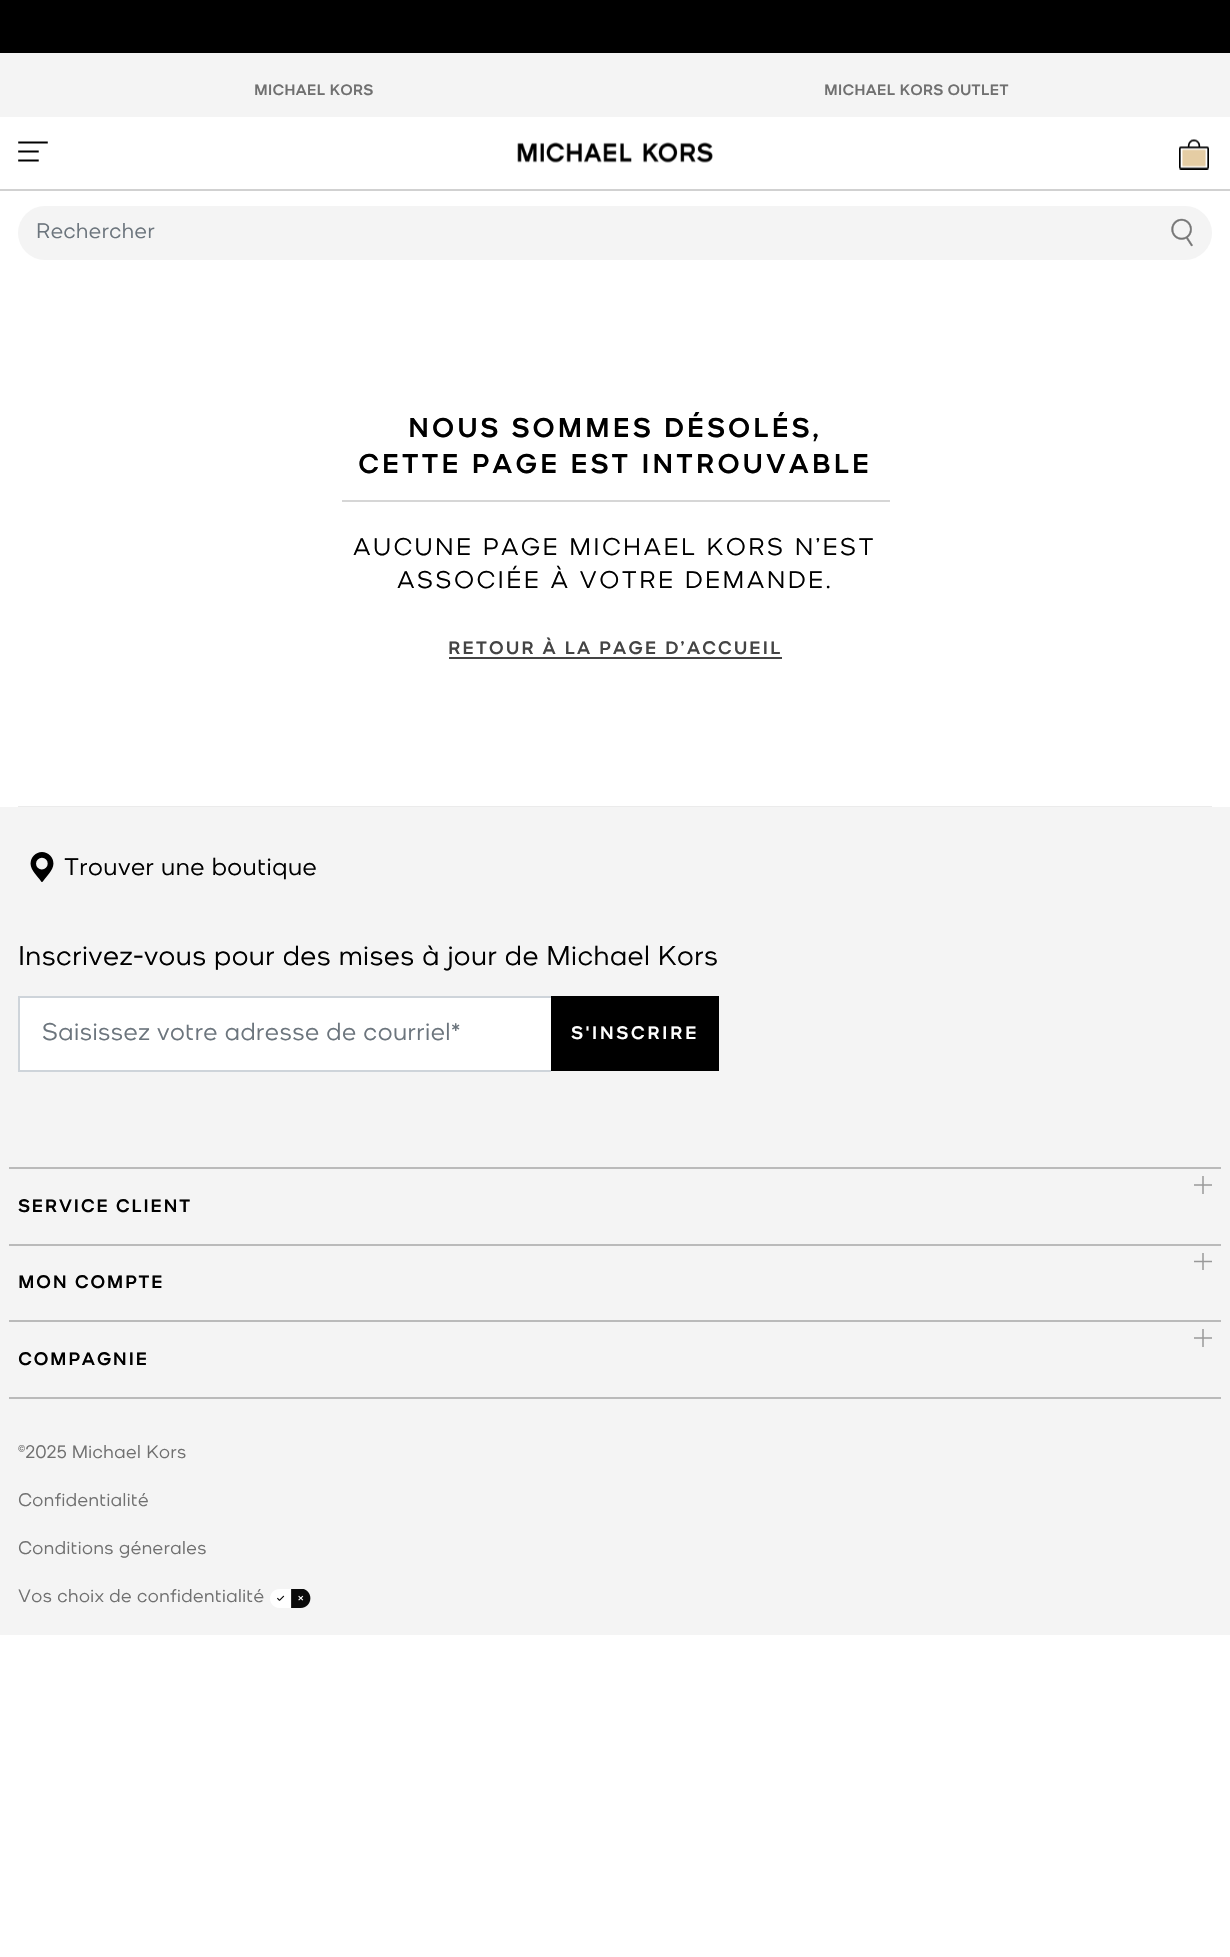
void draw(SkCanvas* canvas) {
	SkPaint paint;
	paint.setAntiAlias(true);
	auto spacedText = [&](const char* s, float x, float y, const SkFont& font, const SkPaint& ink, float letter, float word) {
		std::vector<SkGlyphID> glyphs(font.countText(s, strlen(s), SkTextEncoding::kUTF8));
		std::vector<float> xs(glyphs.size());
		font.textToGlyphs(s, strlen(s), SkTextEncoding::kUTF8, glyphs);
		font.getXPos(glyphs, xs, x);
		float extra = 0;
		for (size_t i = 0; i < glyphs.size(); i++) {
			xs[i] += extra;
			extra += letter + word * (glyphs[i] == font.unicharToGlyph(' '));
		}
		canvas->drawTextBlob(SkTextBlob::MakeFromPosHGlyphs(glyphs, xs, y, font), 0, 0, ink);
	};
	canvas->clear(0xffffffff);
	paint.setColor(0xffd1d1d1);
	canvas->drawRect(SkRect::MakeXYWH(0, 189, 1230, 2), paint);
	paint.setColor(0xff000000);
	canvas->drawRect(SkRect::MakeXYWH(0, 0, 1230, 53), paint);
	paint.setColor(0xfff4f4f4);
	canvas->drawRect(SkRect::MakeXYWH(0, 53, 1230, 64), paint);
	SkFont f1(fontMgr->matchFamilyStyle("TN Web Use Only", SkFontStyle(500, SkFontStyle::kNormal_Width, SkFontStyle::kUpright_Slant)), 15);
	f1.setSubpixel(true);
	paint.setColor(0xff707070);
	canvas->drawString("MICHAEL KORS", 254, 95, f1, paint);
	canvas->drawString("MICHAEL KORS OUTLET", 824, 95, f1, paint);
	canvas->drawImageRect(SkImages::DeferredFromEncodedData(SkData::MakeFromFileName("img1.png")), SkRect::MakeXYWH(18, 141, 30, 21), SkSamplingOptions());
	canvas->drawImageRect(SkImages::DeferredFromEncodedData(SkData::MakeFromFileName("img2.png")), SkRect::MakeXYWH(517, 142, 196, 21), SkSamplingOptions());
	canvas->drawImageRect(SkImages::DeferredFromEncodedData(SkData::MakeFromFileName("img3.png")), SkRect::MakeXYWH(1179, 139, 30, 31), SkSamplingOptions());
	paint.setColor(0xfff4f4f4);
	canvas->drawRoundRect(SkRect::MakeXYWH(18, 206, 1194, 54), 27, 27, paint);
	SkFont f2(fontMgr->matchFamilyStyle("TN Web Use Only", SkFontStyle(300, SkFontStyle::kNormal_Width, SkFontStyle::kUpright_Slant)), 21);
	f2.setSubpixel(true);
	paint.setColor(0xff6c757d);
	canvas->drawString("Rechercher", 36, 238, f2, paint);
	canvas->drawImageRect(SkImages::DeferredFromEncodedData(SkData::MakeFromFileName("img4.png")), SkRect::MakeXYWH(1171, 218, 22, 29), SkSamplingOptions());
	paint.setColor(0xffebebeb);
	canvas->drawRect(SkRect::MakeXYWH(18, 806, 1194, 1), paint);
	paint.setColor(0xffd6d6d6);
	canvas->drawRect(SkRect::MakeXYWH(342, 500, 548, 2), paint);
	SkFont f3(fontMgr->matchFamilyStyle("TN Web Use Only", SkFontStyle(500, SkFontStyle::kNormal_Width, SkFontStyle::kUpright_Slant)), 27);
	f3.setSubpixel(true);
	paint.setColor(0xff000000);
	spacedText("NOUS SOMMES DÉSOLÉS,", 408, 437, f3, paint, 2.7, 0);
	spacedText("CETTE PAGE EST INTROUVABLE", 358, 473, f3, paint, 2.7, 0);
	SkFont f4(fontMgr->matchFamilyStyle("TN Web Use Only", SkFontStyle(300, SkFontStyle::kNormal_Width, SkFontStyle::kUpright_Slant)), 24);
	f4.setSubpixel(true);
	spacedText("AUCUNE PAGE MICHAEL KORS N’EST", 353, 555, f4, paint, 2.4, 0);
	spacedText("ASSOCIÉE À VOTRE DEMANDE.", 397, 588, f4, paint, 2.4, 0);
	SkFont f5(fontMgr->matchFamilyStyle("TN Web Use Only", SkFontStyle(500, SkFontStyle::kNormal_Width, SkFontStyle::kUpright_Slant)), 18);
	f5.setSubpixel(true);
	paint.setColor(0xff444444);
	spacedText("RETOUR À LA PAGE D’ACCUEIL", 448, 654, f5, paint, 1.8, 0);
	canvas->drawRect(SkRect::MakeXYWH(449, 657, 333, 2), paint);
	paint.setColor(0xfff4f4f4);
	canvas->drawRect(SkRect::MakeXYWH(0, 807, 1230, 828), paint);
	paint.setColor(0xffbababa);
	canvas->drawRect(SkRect::MakeXYWH(9, 1167, 1212, 2), paint);
	canvas->drawImageRect(SkImages::DeferredFromEncodedData(SkData::MakeFromFileName("img5.png")), SkRect::MakeXYWH(30, 852, 24, 30), SkSamplingOptions());
	paint.setColor(0xff000000);
	canvas->drawString("Trouver une boutique", 64, 875, f4, paint);
	SkFont f6(fontMgr->matchFamilyStyle("TN Web Use Only", SkFontStyle(300, SkFontStyle::kNormal_Width, SkFontStyle::kUpright_Slant)), 27);
	f6.setSubpixel(true);
	canvas->drawString("Inscrivez-vous pour des mises à jour de Michael Kors", 18, 965, f6, paint);
	paint.setColor(0xffffffff);
	canvas->drawRect(SkRect::MakeXYWH(20, 998, 531, 72), paint);
	paint.setColor(0xffced4da);
	canvas->drawRect(SkRect::MakeXYWH(18, 996, 533, 2), paint);
	canvas->drawRect(SkRect::MakeXYWH(18, 1070, 533, 2), paint);
	canvas->drawRect(SkRect::MakeXYWH(18, 996, 2, 75), paint);
	paint.setColor(0xff6c757d);
	canvas->drawString("Saisissez votre adresse de courriel*", 42, 1040, f4, paint);
	paint.setColor(0xff000000);
	canvas->drawRect(SkRect::MakeXYWH(551, 996, 168, 75), paint);
	paint.setColor(0xffffffff);
	spacedText("S'INSCRIRE", 571, 1039, f5, paint, 2.4, 0);
	paint.setColor(0xffbababa);
	canvas->drawRect(SkRect::MakeXYWH(9, 1397, 1212, 2), paint);
	canvas->drawRect(SkRect::MakeXYWH(9, 1244, 1212, 2), paint);
	canvas->drawImageRect(SkImages::DeferredFromEncodedData(SkData::MakeFromFileName("img6.png")), SkRect::MakeXYWH(1194, 1176, 18, 18), SkSamplingOptions());
	paint.setColor(0xff000000);
	spacedText("SERVICE CLIENT", 18, 1212, f5, paint, 1.5, 0);
	paint.setColor(0xffbababa);
	canvas->drawRect(SkRect::MakeXYWH(9, 1320, 1212, 2), paint);
	canvas->drawImageRect(SkImages::DeferredFromEncodedData(SkData::MakeFromFileName("img7.png")), SkRect::MakeXYWH(1194, 1253, 18, 17), SkSamplingOptions());
	paint.setColor(0xff000000);
	spacedText("MON COMPTE", 18, 1288, f5, paint, 1.5, 0);
	canvas->drawImageRect(SkImages::DeferredFromEncodedData(SkData::MakeFromFileName("img6.png")), SkRect::MakeXYWH(1194, 1329, 18, 18), SkSamplingOptions());
	spacedText("COMPAGNIE", 18, 1365, f5, paint, 1.5, 0);
	SkFont f7(fontMgr->matchFamilyStyle("TN Web Use Only", SkFontStyle(300, SkFontStyle::kNormal_Width, SkFontStyle::kUpright_Slant)), 18);
	f7.setSubpixel(true);
	paint.setColor(0xff707070);
	canvas->drawString("©2025 Michael Kors", 18, 1458, f7, paint);
	canvas->drawString("Confidentialité", 18, 1506, f7, paint);
	canvas->drawString("Conditions génerales", 18, 1554, f7, paint);
	canvas->drawString("Vos choix de confidentialité", 18, 1602, f7, paint);
	canvas->drawImageRect(SkImages::DeferredFromEncodedData(SkData::MakeFromFileName("img8.png")), SkRect::MakeXYWH(270, 1589, 41, 19), SkSamplingOptions());
}
